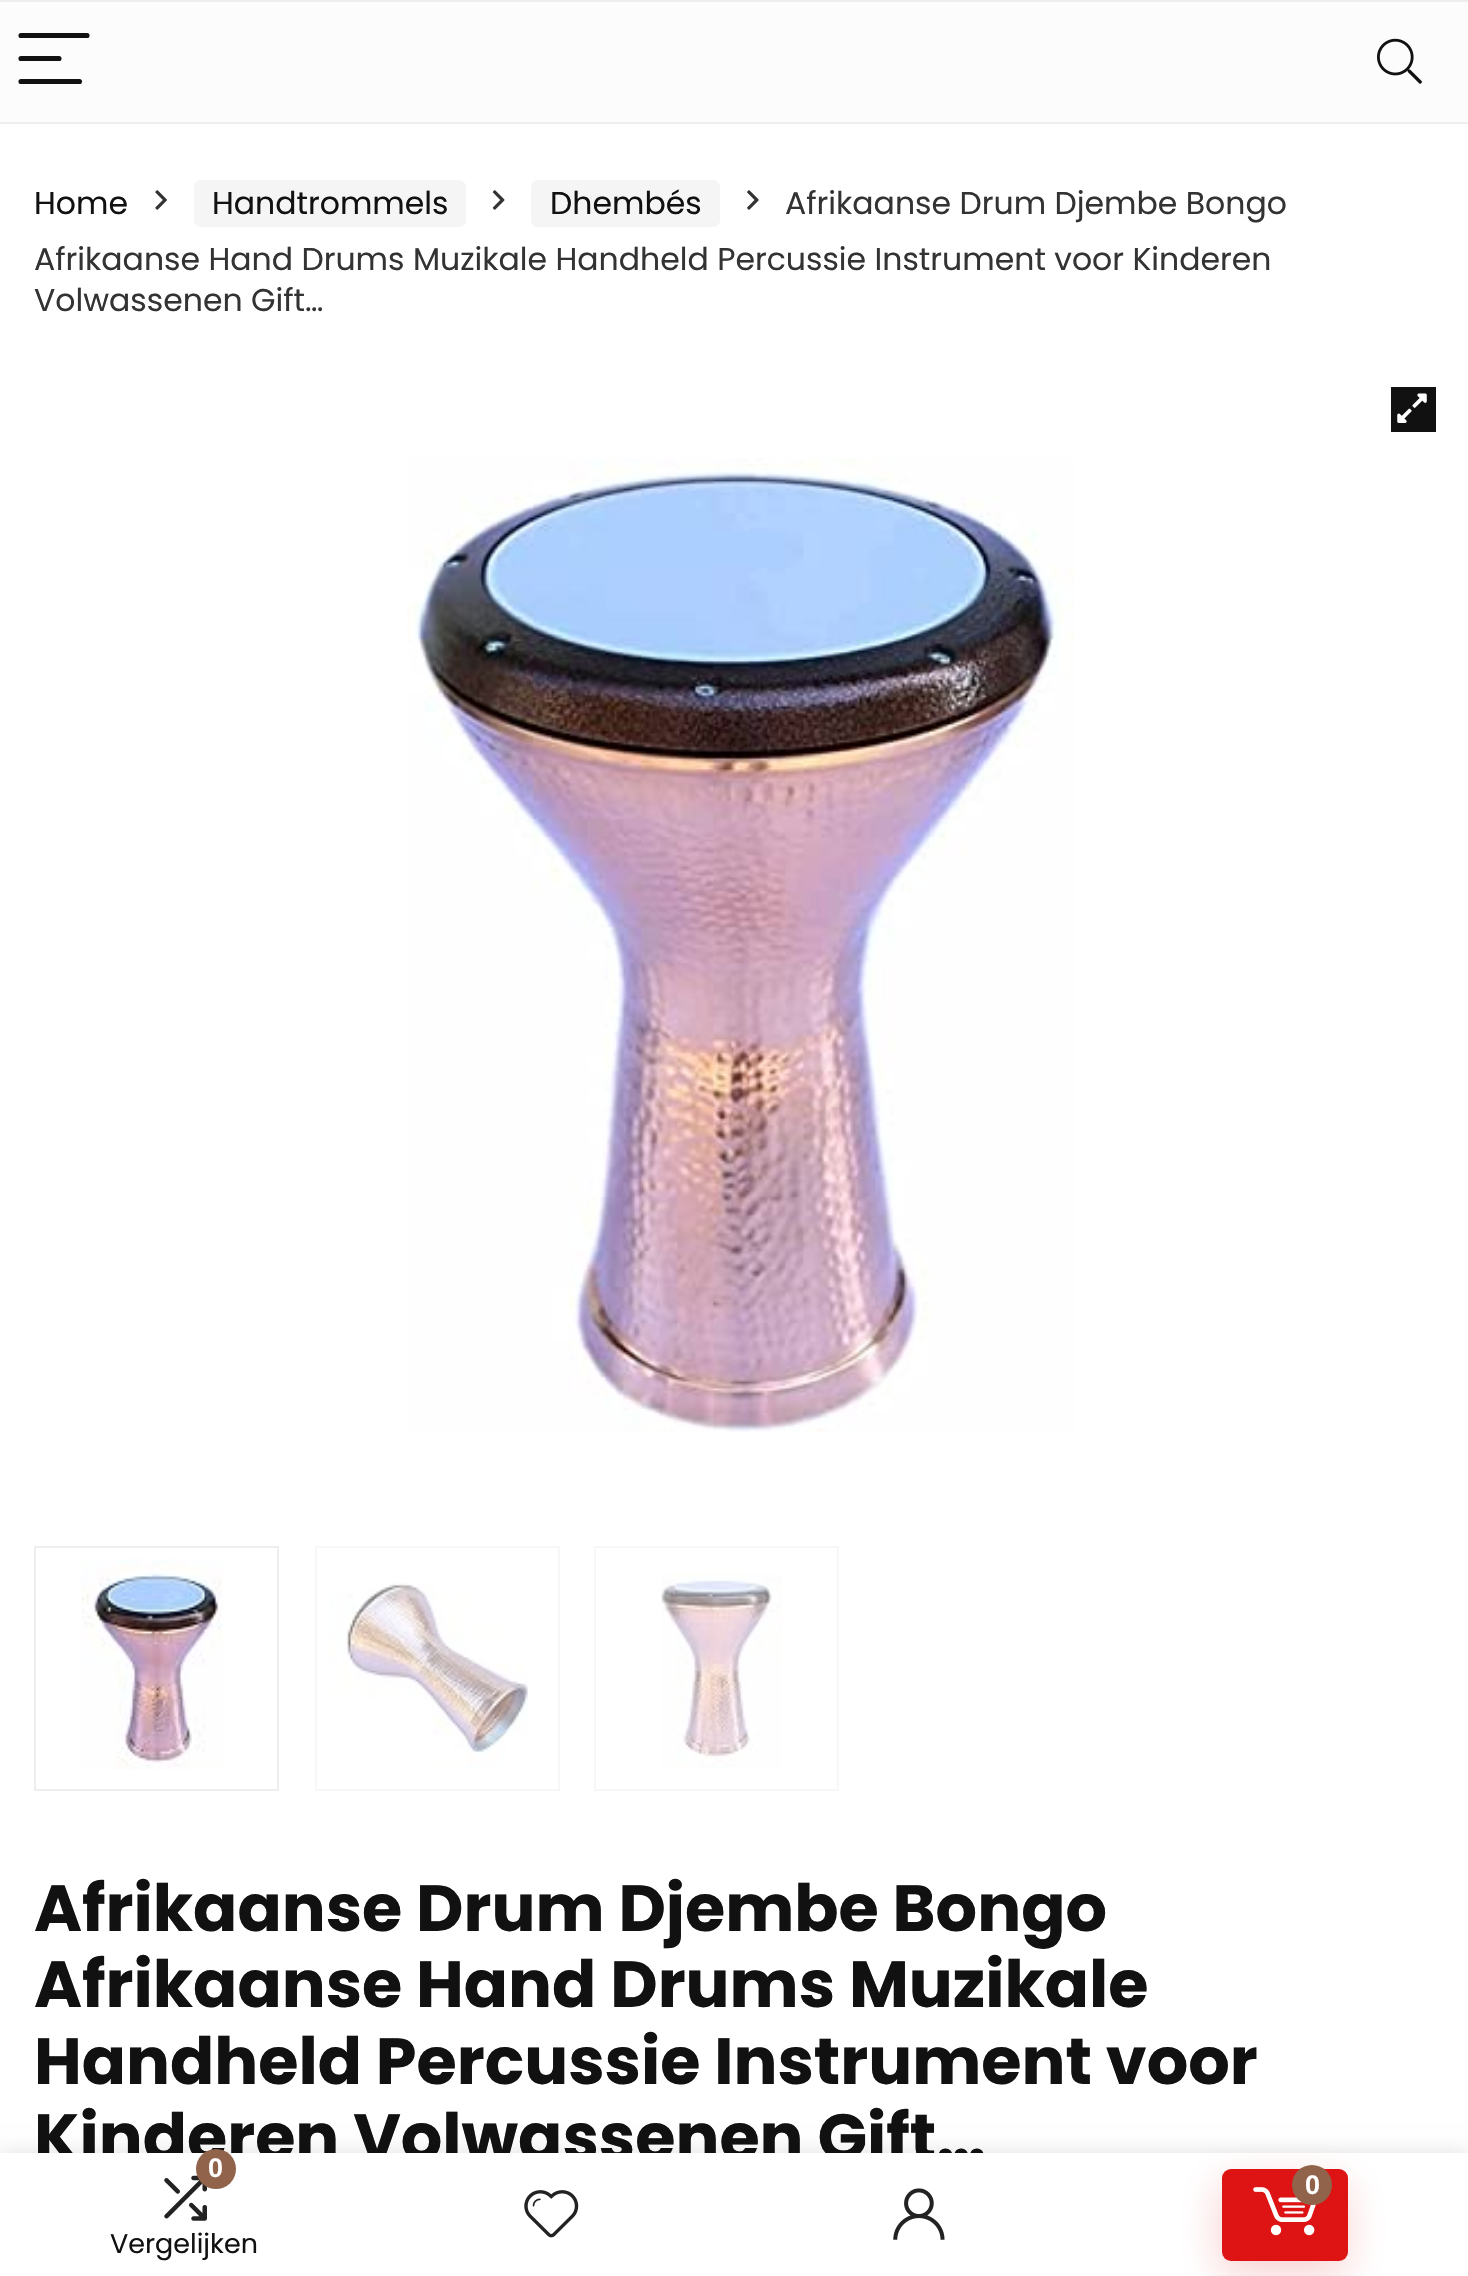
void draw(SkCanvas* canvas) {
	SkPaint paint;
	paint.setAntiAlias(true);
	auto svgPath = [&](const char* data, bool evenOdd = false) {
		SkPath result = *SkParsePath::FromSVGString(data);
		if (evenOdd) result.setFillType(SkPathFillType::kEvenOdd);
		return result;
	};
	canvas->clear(0xffffffff);
	SkFont f1(fontMgr->matchFamilyStyle("Poppins", SkFontStyle::Normal()), 31.5);
	f1.setSubpixel(true);
	paint.setColor(0xff111111);
	canvas->drawString("Home", 34, 214, f1, paint);
	canvas->drawImageRect(SkImages::DeferredFromEncodedData(SkData::MakeFromFileName("img1.png")), SkRect::MakeXYWH(155, 190, 12, 20), SkSamplingOptions());
	paint.setColor(0xfff5f5f5);
	canvas->drawRoundRect(SkRect::MakeXYWH(194, 180, 272, 47), 7, 7, paint);
	paint.setColor(0xff111111);
	canvas->drawString("Handtrommels", 212, 214, f1, paint);
	canvas->drawImageRect(SkImages::DeferredFromEncodedData(SkData::MakeFromFileName("img2.png")), SkRect::MakeXYWH(492, 190, 13, 20), SkSamplingOptions());
	paint.setColor(0xfff5f5f5);
	canvas->drawRoundRect(SkRect::MakeXYWH(531, 180, 189, 47), 7, 7, paint);
	paint.setColor(0xff111111);
	canvas->drawString("Dhembés", 550, 214, f1, paint);
	canvas->drawImageRect(SkImages::DeferredFromEncodedData(SkData::MakeFromFileName("img3.png")), SkRect::MakeXYWH(747, 190, 12, 20), SkSamplingOptions());
	paint.setColor(0xff333333);
	canvas->drawString("Afrikaanse Drum Djembe Bongo", 785, 214, f1, paint);
	canvas->drawString("Afrikaanse Hand Drums Muzikale Handheld Percussie Instrument voor Kinderen", 34, 270, f1, paint);
	canvas->drawString("Volwassenen Gift…", 34, 311, f1, paint);
	paint.setColor(0xff111111);
	canvas->drawRect(SkRect::MakeXYWH(1391, 387, 45, 45), paint);
	canvas->drawImageRect(SkImages::DeferredFromEncodedData(SkData::MakeFromFileName("img4.png")), SkRect::MakeXYWH(1397, 393, 30, 30), SkSamplingOptions());
	canvas->drawImageRect(SkImages::DeferredFromEncodedData(SkData::MakeFromFileName("img5.png")), SkRect::MakeXYWH(407, 458, 668, 974), SkSamplingOptions());
	paint.setStroke(true);
	paint.setStrokeWidth(2);
	paint.setColor(0xffeeeeee);
	canvas->drawRect(SkRect::MakeXYWH(35, 1547, 243, 243), paint);
	canvas->drawImageRect(SkImages::DeferredFromEncodedData(SkData::MakeFromFileName("img6.png")), SkRect::MakeXYWH(81, 1559, 142, 211), SkSamplingOptions());
	paint.setColor(0xfff7f7f7);
	canvas->drawRect(SkRect::MakeXYWH(316, 1547, 243, 243), paint);
	canvas->drawImageRect(SkImages::DeferredFromEncodedData(SkData::MakeFromFileName("img7.png")), SkRect::MakeXYWH(329, 1582, 200, 186), SkSamplingOptions());
	canvas->drawRect(SkRect::MakeXYWH(595, 1547, 243, 243), paint);
	canvas->drawImageRect(SkImages::DeferredFromEncodedData(SkData::MakeFromFileName("img8.png")), SkRect::MakeXYWH(661, 1572, 121, 196), SkSamplingOptions());
	SkFont f2(fontMgr->matchFamilyStyle("Poppins", SkFontStyle::Bold()), 65.25);
	f2.setSubpixel(true);
	paint.setStroke(false);
	paint.setColor(0xff111111);
	canvas->drawString("Afrikaanse Drum Djembe Bongo", 34, 1931, f2, paint);
	canvas->drawString("Afrikaanse Hand Drums Muzikale", 34, 2007, f2, paint);
	canvas->drawString("Handheld Percussie Instrument voor", 34, 2084, f2, paint);
	canvas->drawString("Kinderen Volwassenen Gift…", 34, 2160, f2, paint);
	paint.setColor(0xfffcfcfc);
	canvas->drawRect(SkRect::MakeXYWH(0, 2, 1468, 120), paint);
	paint.setColor(0xffeeeeee);
	canvas->drawRect(SkRect::MakeXYWH(0, 0, 1468, 2), paint);
	canvas->drawRect(SkRect::MakeXYWH(0, 122, 1468, 2), paint);
	paint.setStroke(true);
	paint.setStrokeWidth(5.1);
	paint.setStrokeCap(SkPaint::kRound_Cap);
	paint.setColor(0xff111111);
	canvas->drawPath(svgPath("M21 35.5H87"), paint);
	canvas->drawPath(svgPath("M21 58.5H59"), paint);
	canvas->drawPath(svgPath("M21 81.5H79.5"), paint);
	canvas->drawImageRect(SkImages::DeferredFromEncodedData(SkData::MakeFromFileName("img9.png")), SkRect::MakeXYWH(1377, 38, 45, 46), SkSamplingOptions());
	paint.setStroke(false);
	paint.setColor(0x1f000000);
	paint.setMaskFilter(SkMaskFilter::MakeBlur(kNormal_SkBlurStyle, 10));
	canvas->drawRect(SkRect::MakeXYWH(0, 2153, 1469, 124), paint);
	paint.setMaskFilter(nullptr);
	paint.setColor(0xffffffff);
	canvas->drawRect(SkRect::MakeXYWH(0, 2153, 1468, 123), paint);
	canvas->drawImageRect(SkImages::DeferredFromEncodedData(SkData::MakeFromFileName("img10.png")), SkRect::MakeXYWH(164, 2175, 43, 46), SkSamplingOptions());
	paint.setColor(0xff90634a);
	canvas->drawCircle(216, 2169, 20, paint);
	SkFont f3(fontMgr->matchFamilyStyle("Liberation Sans", SkFontStyle::Bold()), 27);
	f3.setSubpixel(true);
	paint.setColor(0xffffffff);
	canvas->drawString("0", 208, 2177, f3, paint);
	SkFont f4(fontMgr->matchFamilyStyle("Poppins", SkFontStyle::Normal()), 27);
	f4.setSubpixel(true);
	paint.setColor(0xff111111);
	canvas->drawString("Vergelijken", 110, 2253, f4, paint);
	paint.setColor(0x33de1414);
	paint.setMaskFilter(SkMaskFilter::MakeBlur(kNormal_SkBlurStyle, 21.5));
	canvas->drawRoundRect(SkRect::MakeXYWH(1220, 2183, 126, 92), 9, 9, paint);
	paint.setMaskFilter(nullptr);
	paint.setColor(0xffde1414);
	canvas->drawRoundRect(SkRect::MakeXYWH(1222, 2169, 126, 92), 9, 9, paint);
	canvas->drawImageRect(SkImages::DeferredFromEncodedData(SkData::MakeFromFileName("img11.png")), SkRect::MakeXYWH(1253, 2187, 63, 49), SkSamplingOptions());
	paint.setColor(0xff90634a);
	canvas->drawCircle(1312, 2185, 20, paint);
	paint.setColor(0xffffffff);
	canvas->drawString("0", 1305, 2194, f3, paint);
	canvas->drawImageRect(SkImages::DeferredFromEncodedData(SkData::MakeFromFileName("img12.png")), SkRect::MakeXYWH(524, 2190, 55, 48), SkSamplingOptions());
	canvas->drawImageRect(SkImages::DeferredFromEncodedData(SkData::MakeFromFileName("img13.png")), SkRect::MakeXYWH(893, 2188, 52, 52), SkSamplingOptions());
}
